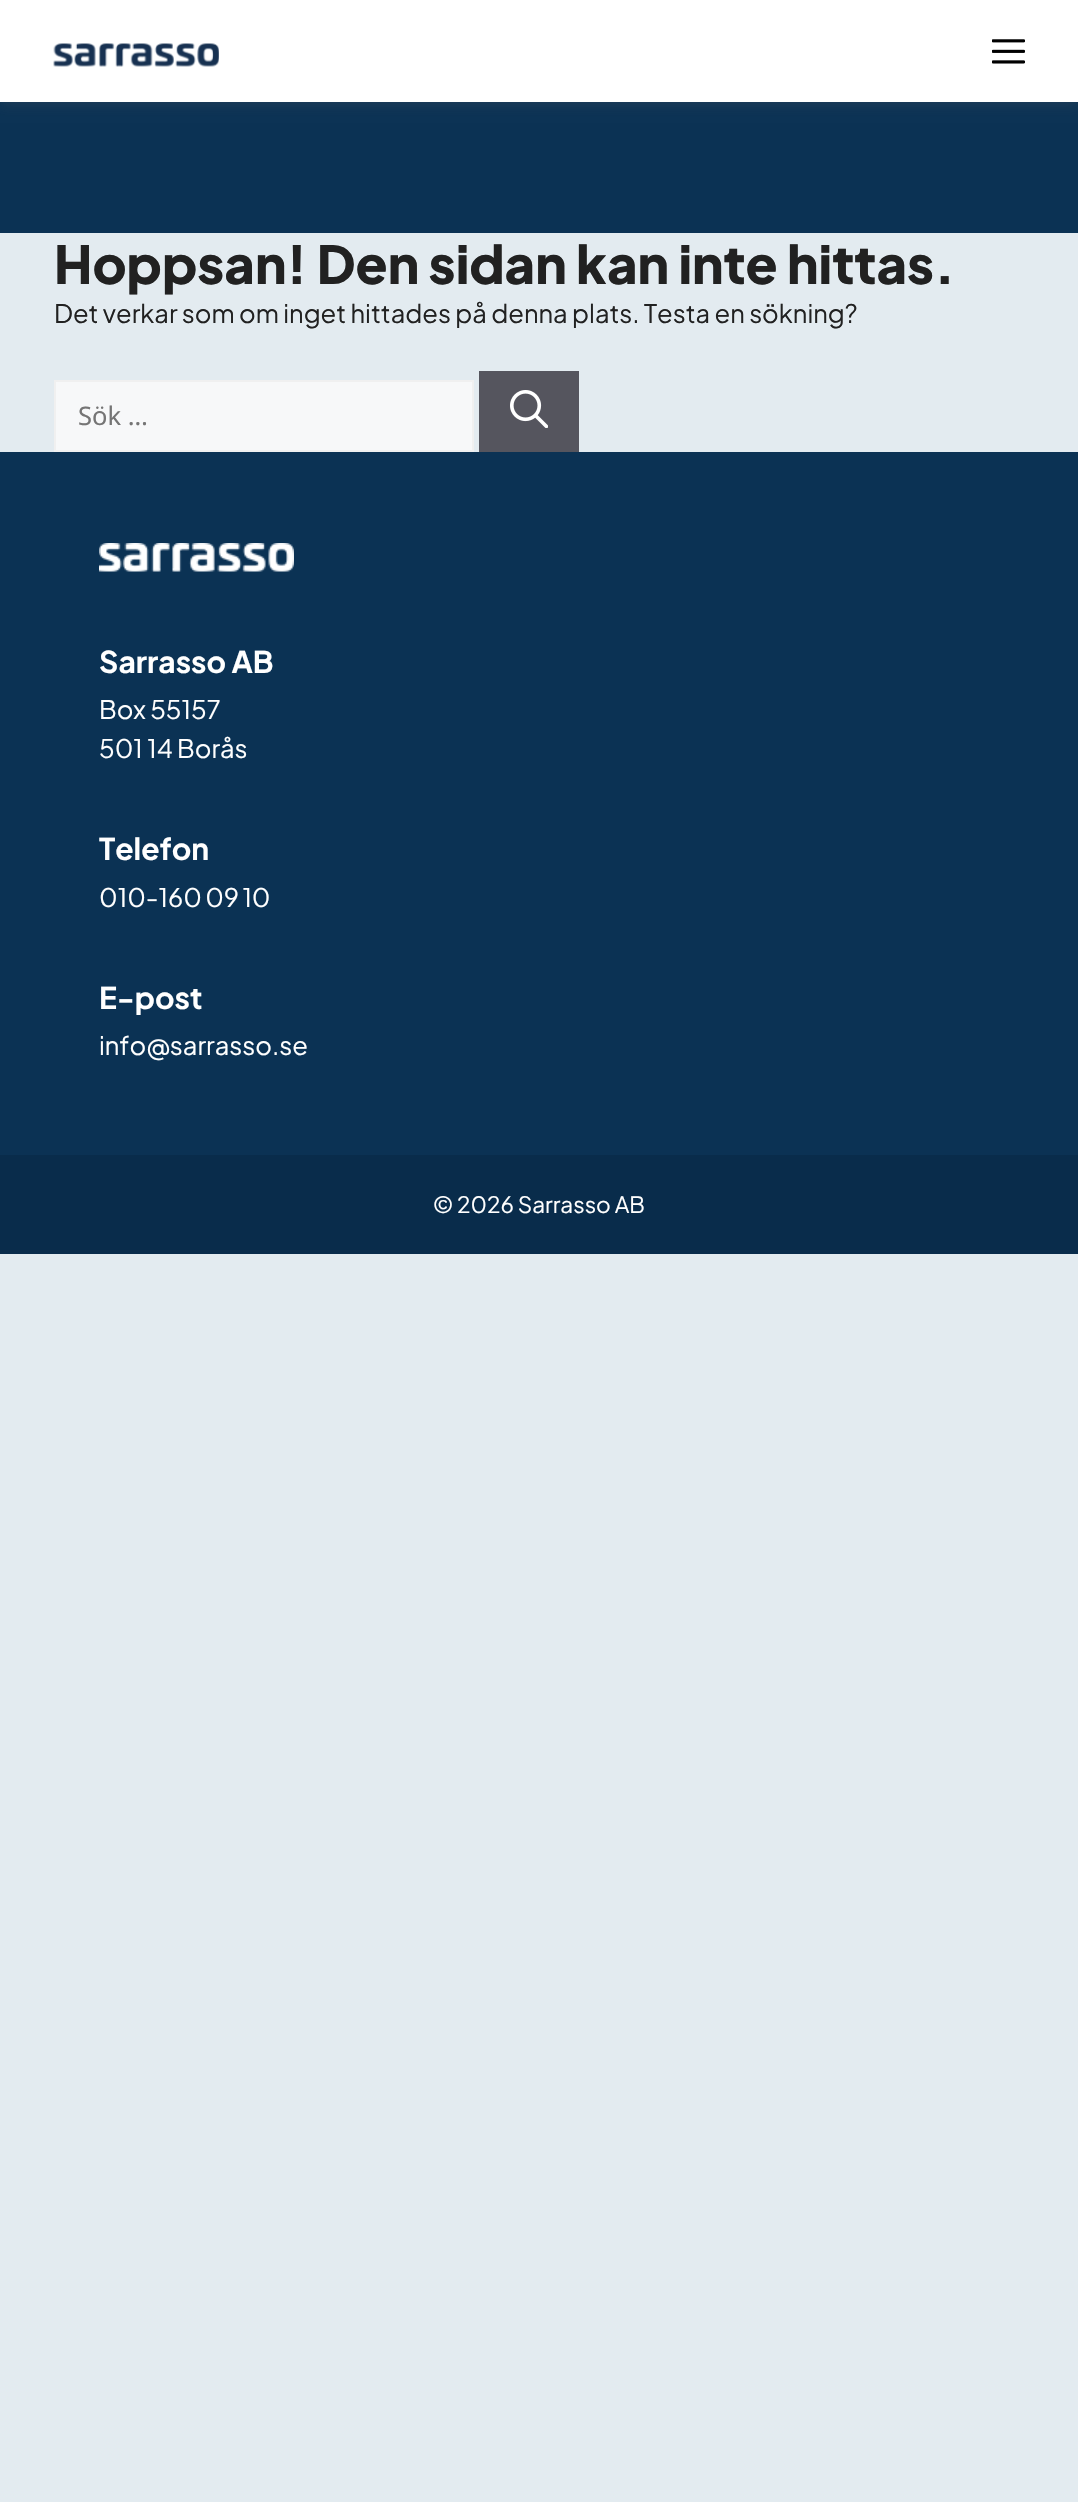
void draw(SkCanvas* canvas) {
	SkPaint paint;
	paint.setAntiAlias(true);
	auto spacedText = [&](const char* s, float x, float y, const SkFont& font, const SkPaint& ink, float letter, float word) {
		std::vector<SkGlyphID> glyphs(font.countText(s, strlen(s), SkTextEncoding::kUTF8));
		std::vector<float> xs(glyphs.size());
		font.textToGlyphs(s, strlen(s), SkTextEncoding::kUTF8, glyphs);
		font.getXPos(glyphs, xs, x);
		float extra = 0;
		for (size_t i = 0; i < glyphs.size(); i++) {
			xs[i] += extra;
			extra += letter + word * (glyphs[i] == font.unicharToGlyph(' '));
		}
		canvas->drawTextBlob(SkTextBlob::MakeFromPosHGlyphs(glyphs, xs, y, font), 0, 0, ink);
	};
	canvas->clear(0xffe3ebf0);
	paint.setColor(0xff0b3254);
	canvas->drawRect(SkRect::MakeXYWH(0, 102, 1078, 131), paint);
	paint.setColor(0x33636363);
	paint.setMaskFilter(SkMaskFilter::MakeBlur(kNormal_SkBlurStyle, 6));
	canvas->drawRect(SkRect::MakeXYWH(0, 3, 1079, 102), paint);
	paint.setMaskFilter(nullptr);
	paint.setColor(0xffffffff);
	canvas->drawRect(SkRect::MakeXYWH(0, 0, 1078, 102), paint);
	canvas->drawImageRect(SkImages::DeferredFromEncodedData(SkData::MakeFromFileName("img1.png")), SkRect::MakeXYWH(53, 43, 166, 24), SkSamplingOptions());
	canvas->drawImageRect(SkImages::DeferredFromEncodedData(SkData::MakeFromFileName("img2.png")), SkRect::MakeXYWH(992, 39, 33, 25), SkSamplingOptions());
	SkFont f1(fontMgr->matchFamilyStyle("Plus Jakarta Sans", SkFontStyle(800, SkFontStyle::kNormal_Width, SkFontStyle::kUpright_Slant)), 52.5);
	f1.setSubpixel(true);
	paint.setColor(0xff212121);
	canvas->drawString("Hoppsan! Den sidan kan inte hittas.", 54, 284, f1, paint);
	SkFont f2(fontMgr->matchFamilyStyle("Plus Jakarta Sans", SkFontStyle::Normal()), 25.5);
	f2.setSubpixel(true);
	canvas->drawString("Det verkar som om inget hittades på denna plats. Testa en sökning?", 54, 323, f2, paint);
	paint.setColor(0xfff7f8f9);
	canvas->drawRect(SkRect::MakeXYWH(55, 381, 418, 70), paint);
	paint.setStroke(true);
	paint.setStrokeWidth(2);
	paint.setColor(0xfff0f0f0);
	canvas->drawRect(SkRect::MakeXYWH(55, 381, 418, 70), paint);
	SkFont f3(fontMgr->matchFamilyStyle("Noto Sans", SkFontStyle::Normal()), 25.5);
	f3.setSubpixel(true);
	paint.setStroke(false);
	paint.setColor(0xff757575);
	canvas->drawString("Sök …", 78, 425, f3, paint);
	paint.setColor(0xff55555e);
	canvas->drawRect(SkRect::MakeXYWH(479, 371, 100, 81), paint);
	canvas->drawImageRect(SkImages::DeferredFromEncodedData(SkData::MakeFromFileName("img3.png")), SkRect::MakeXYWH(510, 390, 38, 38), SkSamplingOptions());
	paint.setColor(0xff0b3254);
	canvas->drawRect(SkRect::MakeXYWH(0, 452, 1078, 703), paint);
	canvas->drawImageRect(SkImages::DeferredFromEncodedData(SkData::MakeFromFileName("img4.png")), SkRect::MakeXYWH(99, 543, 195, 29), SkSamplingOptions());
	SkFont f4(fontMgr->matchFamilyStyle("Plus Jakarta Sans", SkFontStyle::Bold()), 30);
	f4.setSubpixel(true);
	paint.setColor(0xffffffff);
	canvas->drawString("Sarrasso AB", 99, 673, f4, paint);
	canvas->drawString("Box 55157", 99, 719, f2, paint);
	canvas->drawString("501 14 Borås", 99, 758, f2, paint);
	canvas->drawString("Telefon", 99, 860, f4, paint);
	spacedText("010-160 09 10", 99, 907, f2, paint, 0, -1);
	canvas->drawString("E-post", 99, 1009, f4, paint);
	canvas->drawString("info@sarrasso.se", 99, 1055, f2, paint);
	paint.setColor(0xff092c4b);
	canvas->drawRect(SkRect::MakeXYWH(0, 1155, 1078, 99), paint);
	SkFont f5(fontMgr->matchFamilyStyle("Plus Jakarta Sans", SkFontStyle::Normal()), 22.5);
	f5.setSubpixel(true);
	paint.setColor(0xffffffff);
	canvas->drawString("© 2026 Sarrasso AB", 433, 1213, f5, paint);
}
